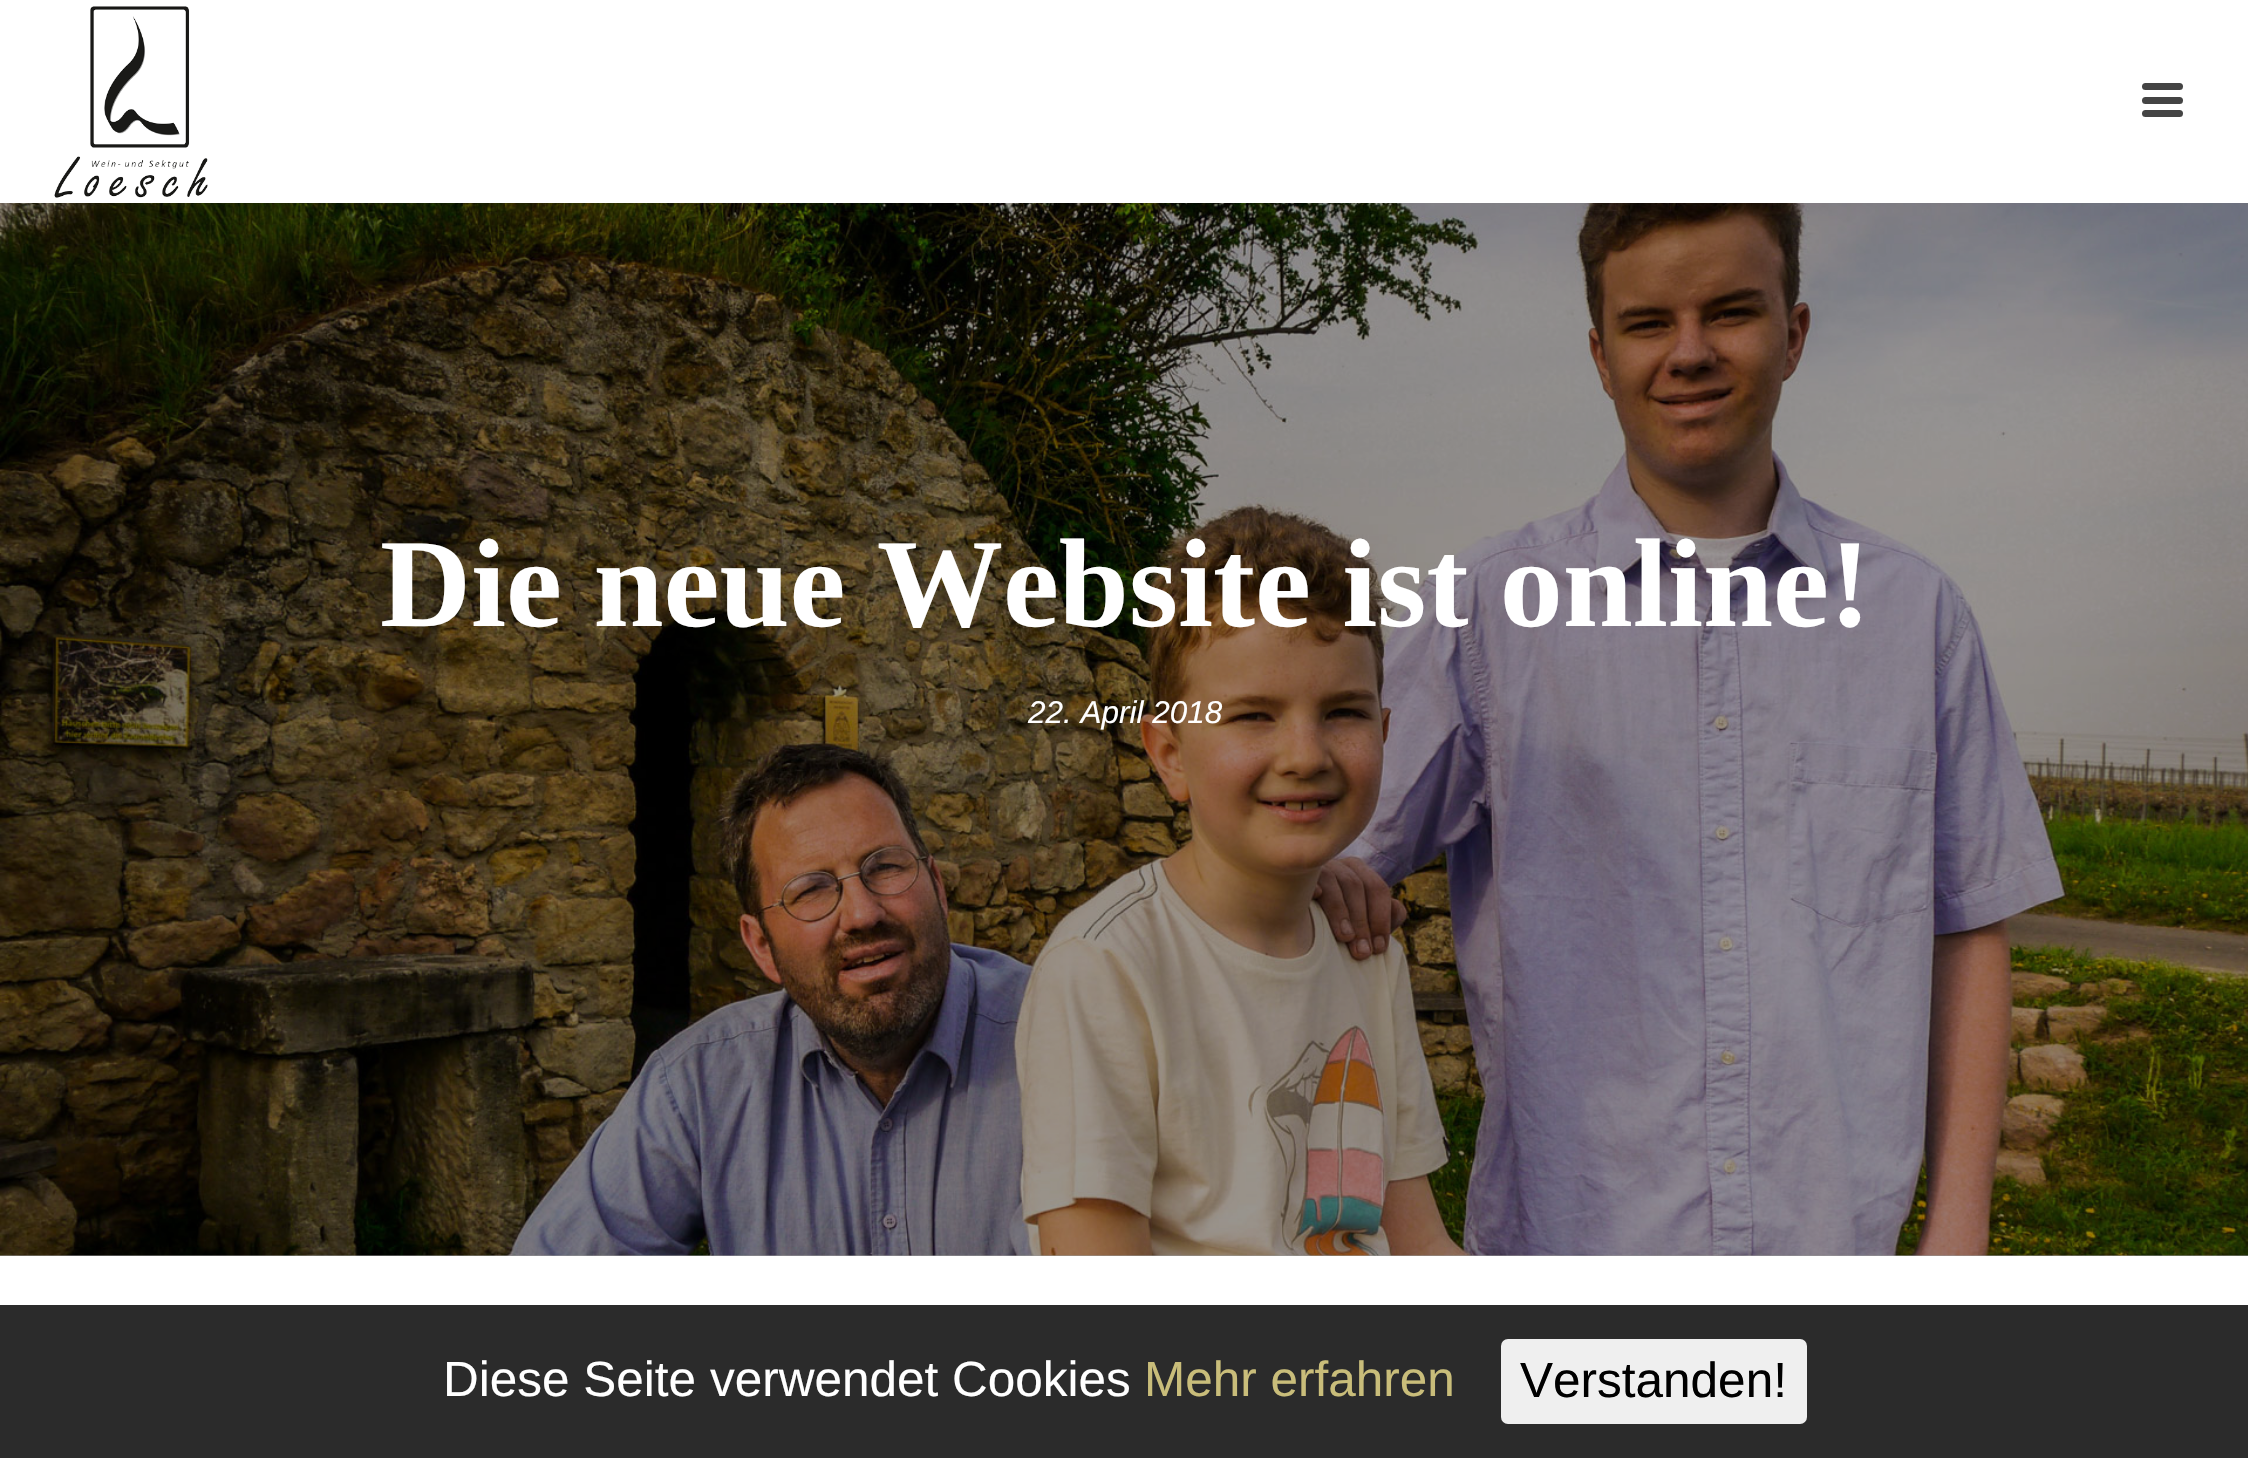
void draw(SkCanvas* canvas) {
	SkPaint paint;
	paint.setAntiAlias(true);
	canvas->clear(0xffffffff);
	paint.setColor(0xff999999);
	canvas->drawRect(SkRect::MakeXYWH(0, 1255, 2248, 1), paint);
	canvas->drawImageRect(SkImages::DeferredFromEncodedData(SkData::MakeFromFileName("img1.png")), SkRect::MakeXYWH(54, 6, 154, 192), SkSamplingOptions());
	paint.setColor(0xff444444);
	canvas->drawRoundRect(SkRect::MakeXYWH(2142, 83, 41, 7), 3.5, 3.5, paint);
	canvas->drawRoundRect(SkRect::MakeXYWH(2142, 97, 41, 7), 3.5, 3.5, paint);
	canvas->drawRoundRect(SkRect::MakeXYWH(2142, 110, 41, 7), 3.5, 3.5, paint);
	canvas->drawImageRect(SkImages::DeferredFromEncodedData(SkData::MakeFromFileName("img2.png")), SkRect::MakeXYWH(0, 203, 2248, 1053), SkSamplingOptions());
	SkFont f1(fontMgr->matchFamilyStyle("Liberation Serif", SkFontStyle::Bold()), 126);
	f1.setSubpixel(true);
	paint.setColor(0xffffffff);
	canvas->drawString("Die neue Website ist online!", 380, 626, f1, paint);
	SkFont f2(fontMgr->matchFamilyStyle("Liberation Sans", SkFontStyle::Italic()), 31.5);
	f2.setSubpixel(true);
	canvas->drawString("22. April 2018", 1028, 723, f2, paint);
	paint.setColor(0xff2b2b2b);
	canvas->drawRect(SkRect::MakeXYWH(0, 1305, 2248, 153), paint);
	SkFont f3(fontMgr->matchFamilyStyle("Liberation Sans", SkFontStyle::Normal()), 49.5);
	f3.setSubpixel(true);
	paint.setColor(0xffffffff);
	canvas->drawString("Diese Seite verwendet Cookies", 443, 1396, f3, paint);
	paint.setColor(0xffc9bd7a);
	canvas->drawString("Mehr erfahren", 1144, 1396, f3, paint);
	paint.setColor(0xffefefef);
	canvas->drawRoundRect(SkRect::MakeXYWH(1501, 1339, 306, 85), 7, 7, paint);
	paint.setColor(0xff000000);
	canvas->drawString("Verstanden!", 1520, 1397, f3, paint);
}
